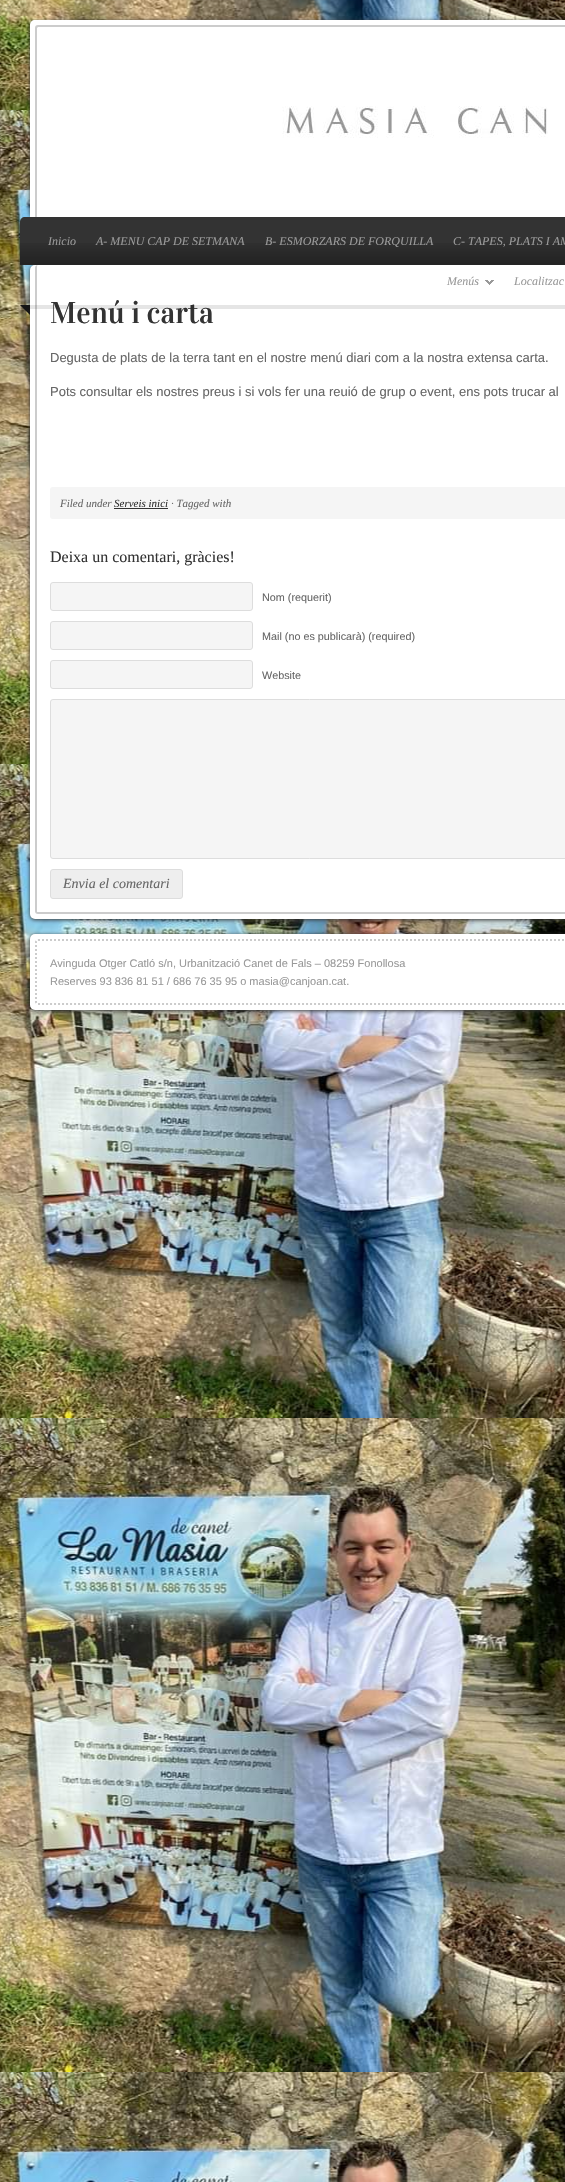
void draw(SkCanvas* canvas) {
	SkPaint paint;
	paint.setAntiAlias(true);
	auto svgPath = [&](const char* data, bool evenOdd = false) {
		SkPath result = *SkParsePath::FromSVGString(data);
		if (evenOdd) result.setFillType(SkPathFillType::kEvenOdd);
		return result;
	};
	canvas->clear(0xffffffff);
	canvas->drawImageRect(SkImages::DeferredFromEncodedData(SkData::MakeFromFileName("img1.png")), SkRect::MakeXYWH(0, 0, 565, 2182), SkSamplingOptions());
	paint.setColor(0xff333333);
	paint.setMaskFilter(SkMaskFilter::MakeBlur(kNormal_SkBlurStyle, 2));
	canvas->drawRoundRect(SkRect::MakeXYWH(30, 21, 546, 197), 5, 5, paint);
	paint.setMaskFilter(nullptr);
	paint.setColor(0xffffffff);
	canvas->drawPath(svgPath("M35 20H565C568 20 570 22 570 25V217H30V25C30 22 32 20 35 20Z"), paint);
	paint.setColor(0xffcccccc);
	canvas->drawPath(svgPath("M38 25H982C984 25 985 26 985 28V217H35V28C35 26 36 25 38 25ZM38 27H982C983 27 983 27 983 28V217H37V28Z", true), paint);
	canvas->drawImageRect(SkImages::DeferredFromEncodedData(SkData::MakeFromFileName("img2.png")), SkRect::MakeXYWH(282, 106, 266, 32), SkSamplingOptions());
	paint.setColor(0xff333333);
	paint.setMaskFilter(SkMaskFilter::MakeBlur(kNormal_SkBlurStyle, 2));
	canvas->drawRoundRect(SkRect::MakeXYWH(30, 266, 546, 654), 5, 5, paint);
	paint.setMaskFilter(nullptr);
	canvas->drawPath(svgPath("M25 217H565C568 217 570 219 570 222V265H20V222C20 219 22 217 25 217Z"), paint);
	canvas->drawImageRect(SkImages::DeferredFromEncodedData(SkData::MakeFromFileName("img3.png")), SkRect::MakeXYWH(20, 243, 545, 22), SkSamplingOptions());
	SkFont f1(fontMgr->matchFamilyStyle("Liberation Serif", SkFontStyle::Italic()), 12);
	f1.setSubpixel(true);
	paint.setColor(0xff999999);
	canvas->drawString("Inicio", 48, 245, f1, paint);
	canvas->drawString("A- MENU CAP DE SETMANA", 96, 245, f1, paint);
	canvas->drawString("B- ESMORZARS DE FORQUILLA", 265, 245, f1, paint);
	canvas->drawString("C- TAPES, PLATS I AM", 453, 245, f1, paint);
	paint.setColor(0xffffffff);
	canvas->drawRoundRect(SkRect::MakeXYWH(30, 265, 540, 654), 5, 5, paint);
	paint.setColor(0xffcccccc);
	canvas->drawPath(svgPath("M38 265H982C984 265 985 266 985 268V911C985 913 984 914 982 914H38C36 914 35 913 35 911V268C35 266 36 265 38 265ZM38 265H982C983 265 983 266 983 268V911C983 912 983 912 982 912H38C37 912 37 912 37 911V268C37 266 37 265 38 265Z", true), paint);
	paint.setColor(0xff999999);
	canvas->drawString("Menús", 447, 285, f1, paint);
	canvas->drawImageRect(SkImages::DeferredFromEncodedData(SkData::MakeFromFileName("img4.png")), SkRect::MakeXYWH(485, 280, 9, 5), SkSamplingOptions());
	canvas->drawString("Localitzac", 514, 285, f1, paint);
	SkFont f2(fontMgr->matchFamilyStyle("Vidaloka", SkFontStyle::Normal()), 30);
	f2.setSubpixel(true);
	paint.setColor(0xff333333);
	canvas->drawString("Menú i carta", 50, 323, f2, paint);
	canvas->drawImageRect(SkImages::DeferredFromEncodedData(SkData::MakeFromFileName("img5.png")), SkRect::MakeXYWH(20, 305, 545, 10), SkSamplingOptions());
	SkFont f3(fontMgr->matchFamilyStyle("Liberation Sans", SkFontStyle::Normal()), 13);
	f3.setSubpixel(true);
	paint.setColor(0xff666666);
	canvas->drawString("Degusta de plats de la terra tant en el nostre menú diari com a la nostra extensa carta.", 50, 362, f3, paint);
	canvas->drawString("Pots consultar els nostres preus i si vols fer una reuió de grup o event, ens pots trucar al", 50, 396, f3, paint);
	paint.setColor(0xfff5f5f5);
	canvas->drawRoundRect(SkRect::MakeXYWH(50, 487, 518, 32), 3, 3, paint);
	SkFont f4(fontMgr->matchFamilyStyle("Liberation Serif", SkFontStyle::Italic()), 11);
	f4.setSubpixel(true);
	paint.setColor(0xff666666);
	canvas->drawString("Filed under", 60, 507, f4, paint);
	paint.setColor(0xff333333);
	canvas->drawString("Serveis inici", 114, 507, f4, paint);
	canvas->drawRect(SkRect::MakeXYWH(114, 508, 54, 1), paint);
	paint.setColor(0xff666666);
	canvas->drawString("· Tagged with", 171, 507, f4, paint);
	SkFont f5(fontMgr->matchFamilyStyle("Liberation Serif", SkFontStyle::Normal()), 16);
	f5.setSubpixel(true);
	paint.setColor(0xff333333);
	canvas->drawString("Deixa un comentari, gràcies!", 50, 562, f5, paint);
	paint.setColor(0xfff5f5f5);
	canvas->drawRoundRect(SkRect::MakeXYWH(50.5, 582.5, 202, 28), 2.5, 2.5, paint);
	paint.setStroke(true);
	paint.setStrokeWidth(1);
	paint.setColor(0xffdddddd);
	canvas->drawRoundRect(SkRect::MakeXYWH(50.5, 582.5, 202, 28), 2.5, 2.5, paint);
	SkFont f6(fontMgr->matchFamilyStyle("Liberation Sans", SkFontStyle::Normal()), 10.8);
	f6.setSubpixel(true);
	paint.setStroke(false);
	paint.setColor(0xff666666);
	canvas->drawString("Nom (requerit)", 262, 601, f6, paint);
	paint.setColor(0xfff5f5f5);
	canvas->drawRoundRect(SkRect::MakeXYWH(50.5, 621.5, 202, 28), 2.5, 2.5, paint);
	paint.setStroke(true);
	paint.setColor(0xffdddddd);
	canvas->drawRoundRect(SkRect::MakeXYWH(50.5, 621.5, 202, 28), 2.5, 2.5, paint);
	paint.setStroke(false);
	paint.setColor(0xff666666);
	canvas->drawString("Mail (no es publicarà) (required)", 262, 640, f6, paint);
	paint.setColor(0xfff5f5f5);
	canvas->drawRoundRect(SkRect::MakeXYWH(50.5, 660.5, 202, 28), 2.5, 2.5, paint);
	paint.setStroke(true);
	paint.setColor(0xffdddddd);
	canvas->drawRoundRect(SkRect::MakeXYWH(50.5, 660.5, 202, 28), 2.5, 2.5, paint);
	paint.setStroke(false);
	paint.setColor(0xff666666);
	canvas->drawString("Website", 262, 679, f6, paint);
	paint.setColor(0xfff5f5f5);
	canvas->drawRoundRect(SkRect::MakeXYWH(50.5, 699.5, 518, 159), 2.5, 2.5, paint);
	paint.setStroke(true);
	paint.setColor(0xffdddddd);
	canvas->drawRoundRect(SkRect::MakeXYWH(50.5, 699.5, 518, 159), 2.5, 2.5, paint);
	paint.setStroke(false);
	paint.setColor(0xffeeeeee);
	canvas->drawRoundRect(SkRect::MakeXYWH(50.5, 869.5, 132, 29), 2.5, 2.5, paint);
	paint.setStroke(true);
	paint.setColor(0xffdddddd);
	canvas->drawRoundRect(SkRect::MakeXYWH(50.5, 869.5, 132, 29), 2.5, 2.5, paint);
	SkFont f7(fontMgr->matchFamilyStyle("Liberation Serif", SkFontStyle::Italic()), 14);
	f7.setSubpixel(true);
	paint.setStroke(false);
	paint.setColor(0xff666666);
	canvas->drawString("Envia el comentari", 63, 888, f7, paint);
	paint.setColor(0xff333333);
	paint.setMaskFilter(SkMaskFilter::MakeBlur(kNormal_SkBlurStyle, 2));
	canvas->drawRoundRect(SkRect::MakeXYWH(30, 935, 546, 76), 5, 5, paint);
	paint.setMaskFilter(nullptr);
	paint.setColor(0xffffffff);
	canvas->drawRoundRect(SkRect::MakeXYWH(30, 934, 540, 76), 5, 5, paint);
	paint.setStroke(true);
	paint.setStrokeWidth(2);
	paint.setColor(0xffcccccc);
	paint.setPathEffect(SkDashPathEffect::Make({{2, 2}}, 0));
	canvas->drawPath(svgPath("M38 940H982C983 940 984 941 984 942V1002C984 1003 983 1004 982 1004H38C37 1004 36 1003 36 1002V942C36 941 37 940 38 940Z"), paint);
	paint.setPathEffect(nullptr);
	SkFont f8(fontMgr->matchFamilyStyle("Liberation Sans", SkFontStyle::Normal()), 11);
	f8.setSubpixel(true);
	paint.setStroke(false);
	paint.setColor(0xff999999);
	canvas->drawString("Avinguda Otger Catló s/n, Urbanització Canet de Fals – 08259 Fonollosa", 50, 967, f8, paint);
	canvas->drawString("Reserves 93 836 81 51 / 686 76 35 95 o masia@canjoan.cat.", 50, 985, f8, paint);
}
